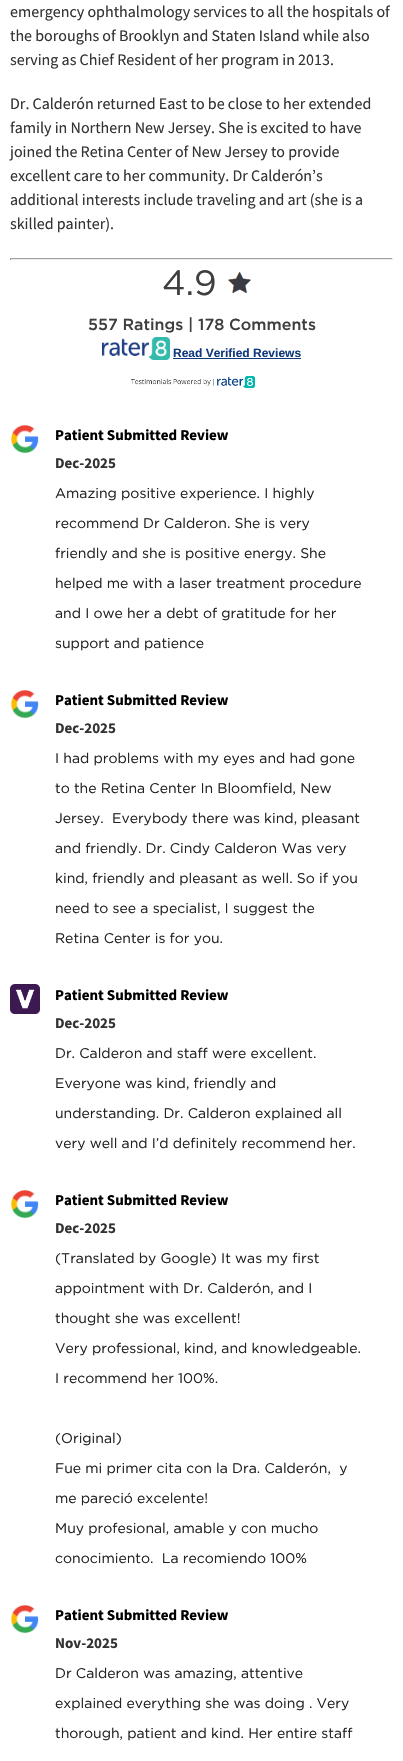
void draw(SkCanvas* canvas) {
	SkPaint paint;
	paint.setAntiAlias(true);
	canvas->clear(0xffffffff);
	SkFont f1(fontMgr->matchFamilyStyle("Source Sans Pro", SkFontStyle::Normal()), 16);
	f1.setSubpixel(true);
	paint.setColor(0xff333333);
	canvas->drawString("emergency ophthalmology services to all the hospitals of", 10, 17, f1, paint);
	canvas->drawString("the boroughs of Brooklyn and Staten Island while also", 10, 41, f1, paint);
	canvas->drawString("serving as Chief Resident of her program in 2013.", 10, 65, f1, paint);
	canvas->drawString("Dr. Calderón returned East to be close to her extended", 10, 109, f1, paint);
	canvas->drawString("family in Northern New Jersey. She is excited to have", 10, 133, f1, paint);
	canvas->drawString("joined the Retina Center of New Jersey to provide", 10, 157, f1, paint);
	canvas->drawString("excellent care to her community. Dr Calderón’s", 10, 181, f1, paint);
	canvas->drawString("additional interests include traveling and art (she is a", 10, 205, f1, paint);
	canvas->drawString("skilled painter).", 10, 229, f1, paint);
	paint.setColor(0xff9f9f9f);
	canvas->drawRect(SkRect::MakeXYWH(10, 258, 383, 1), paint);
	paint.setColor(0xffeeeeee);
	canvas->drawRect(SkRect::MakeXYWH(392, 258, 1, 2), paint);
	canvas->drawRect(SkRect::MakeXYWH(10, 259, 383, 1), paint);
	paint.setColor(0xff9f9f9f);
	canvas->drawRect(SkRect::MakeXYWH(10, 258, 1, 2), paint);
	SkFont f2(fontMgr->matchFamilyStyle("GOTHAM", SkFontStyle::Normal()), 35);
	f2.setSubpixel(true);
	paint.setColor(0xff3f3f3f);
	canvas->drawString("4.9", 162, 295, f2, paint);
	canvas->drawImageRect(SkImages::DeferredFromEncodedData(SkData::MakeFromFileName("img1.png")), SkRect::MakeXYWH(228, 272, 23, 21), SkSamplingOptions());
	SkFont f3(fontMgr->matchFamilyStyle("GOTHAM", SkFontStyle(500, SkFontStyle::kNormal_Width, SkFontStyle::kUpright_Slant)), 16);
	f3.setSubpixel(true);
	canvas->drawString("557 Ratings | 178 Comments", 88, 330, f3, paint);
	canvas->drawImageRect(SkImages::DeferredFromEncodedData(SkData::MakeFromFileName("img2.png")), SkRect::MakeXYWH(102, 337, 68, 23), SkSamplingOptions());
	SkFont f4(fontMgr->matchFamilyStyle("Liberation Sans", SkFontStyle::Bold()), 12);
	f4.setSubpixel(true);
	paint.setColor(0xff113a7d);
	canvas->drawString("Read Verified Reviews", 173, 357, f4, paint);
	canvas->drawRect(SkRect::MakeXYWH(173, 358, 128, 1), paint);
	canvas->drawImageRect(SkImages::DeferredFromEncodedData(SkData::MakeFromFileName("img3.png")), SkRect::MakeXYWH(131, 376, 124, 12), SkSamplingOptions());
	canvas->drawImageRect(SkImages::DeferredFromEncodedData(SkData::MakeFromFileName("img4.png")), SkRect::MakeXYWH(11, 425, 28, 29), SkSamplingOptions());
	SkFont f5(fontMgr->matchFamilyStyle("Source Sans Pro", SkFontStyle::Bold()), 15);
	f5.setSubpixel(true);
	paint.setColor(0xff000000);
	canvas->drawString("Patient Submitted Review", 55, 440, f5, paint);
	paint.setColor(0xff333333);
	canvas->drawString("Dec-2025", 55, 468, f5, paint);
	SkFont f6(fontMgr->matchFamilyStyle("GOTHAM", SkFontStyle::Normal()), 14);
	f6.setSubpixel(true);
	paint.setColor(0xff222222);
	canvas->drawString("Amazing positive experience. I highly", 55, 498, f6, paint);
	canvas->drawString("recommend Dr Calderon. She is very", 55, 528, f6, paint);
	canvas->drawString("friendly and she is positive energy. She", 55, 558, f6, paint);
	canvas->drawString("helped me with a laser treatment procedure", 55, 588, f6, paint);
	canvas->drawString("and I owe her a debt of gratitude for her", 55, 618, f6, paint);
	canvas->drawString("support and patience", 55, 648, f6, paint);
	canvas->drawImageRect(SkImages::DeferredFromEncodedData(SkData::MakeFromFileName("img4.png")), SkRect::MakeXYWH(11, 690, 28, 29), SkSamplingOptions());
	paint.setColor(0xff000000);
	canvas->drawString("Patient Submitted Review", 55, 705, f5, paint);
	paint.setColor(0xff333333);
	canvas->drawString("Dec-2025", 55, 733, f5, paint);
	paint.setColor(0xff222222);
	canvas->drawString("I had problems with my eyes and had gone", 55, 763, f6, paint);
	canvas->drawString("to the Retina Center In Bloomfield, New", 55, 793, f6, paint);
	canvas->drawString("Jersey.  Everybody there was kind, pleasant", 55, 823, f6, paint);
	canvas->drawString("and friendly. Dr. Cindy Calderon Was very", 55, 853, f6, paint);
	canvas->drawString("kind, friendly and pleasant as well. So if you", 55, 883, f6, paint);
	canvas->drawString("need to see a specialist, I suggest the", 55, 913, f6, paint);
	canvas->drawString("Retina Center is for you.", 55, 943, f6, paint);
	canvas->drawImageRect(SkImages::DeferredFromEncodedData(SkData::MakeFromFileName("img5.png")), SkRect::MakeXYWH(10, 984, 30, 30), SkSamplingOptions());
	paint.setColor(0xff000000);
	canvas->drawString("Patient Submitted Review", 55, 1000, f5, paint);
	paint.setColor(0xff333333);
	canvas->drawString("Dec-2025", 55, 1028, f5, paint);
	paint.setColor(0xff222222);
	canvas->drawString("Dr. Calderon and staff were excellent.", 55, 1058, f6, paint);
	canvas->drawString("Everyone was kind, friendly and", 55, 1088, f6, paint);
	canvas->drawString("understanding. Dr. Calderon explained all", 55, 1118, f6, paint);
	canvas->drawString("very well and I’d definitely recommend her.", 55, 1148, f6, paint);
	canvas->drawImageRect(SkImages::DeferredFromEncodedData(SkData::MakeFromFileName("img4.png")), SkRect::MakeXYWH(11, 1190, 28, 29), SkSamplingOptions());
	paint.setColor(0xff000000);
	canvas->drawString("Patient Submitted Review", 55, 1205, f5, paint);
	paint.setColor(0xff333333);
	canvas->drawString("Dec-2025", 55, 1233, f5, paint);
	paint.setColor(0xff222222);
	canvas->drawString("(Translated by Google) It was my first", 55, 1263, f6, paint);
	canvas->drawString("appointment with Dr. Calderón, and I", 55, 1293, f6, paint);
	canvas->drawString("thought she was excellent!", 55, 1323, f6, paint);
	canvas->drawString("Very professional, kind, and knowledgeable.", 55, 1353, f6, paint);
	canvas->drawString("I recommend her 100%.", 55, 1383, f6, paint);
	canvas->drawString("(Original)", 55, 1443, f6, paint);
	canvas->drawString("Fue mi primer cita con la Dra. Calderón,  y", 55, 1473, f6, paint);
	canvas->drawString("me pareció excelente!", 55, 1503, f6, paint);
	canvas->drawString("Muy profesional, amable y con mucho", 55, 1533, f6, paint);
	canvas->drawString("conocimiento.  La recomiendo 100%", 55, 1563, f6, paint);
	canvas->drawImageRect(SkImages::DeferredFromEncodedData(SkData::MakeFromFileName("img6.png")), SkRect::MakeXYWH(11, 1605, 28, 29), SkSamplingOptions());
	paint.setColor(0xff000000);
	canvas->drawString("Patient Submitted Review", 55, 1620, f5, paint);
	paint.setColor(0xff333333);
	canvas->drawString("Nov-2025", 55, 1648, f5, paint);
	paint.setColor(0xff222222);
	canvas->drawString("Dr Calderon was amazing, attentive", 55, 1678, f6, paint);
	canvas->drawString("explained everything she was doing . Very", 55, 1708, f6, paint);
	canvas->drawString("thorough, patient and kind. Her entire staff", 55, 1738, f6, paint);
}
